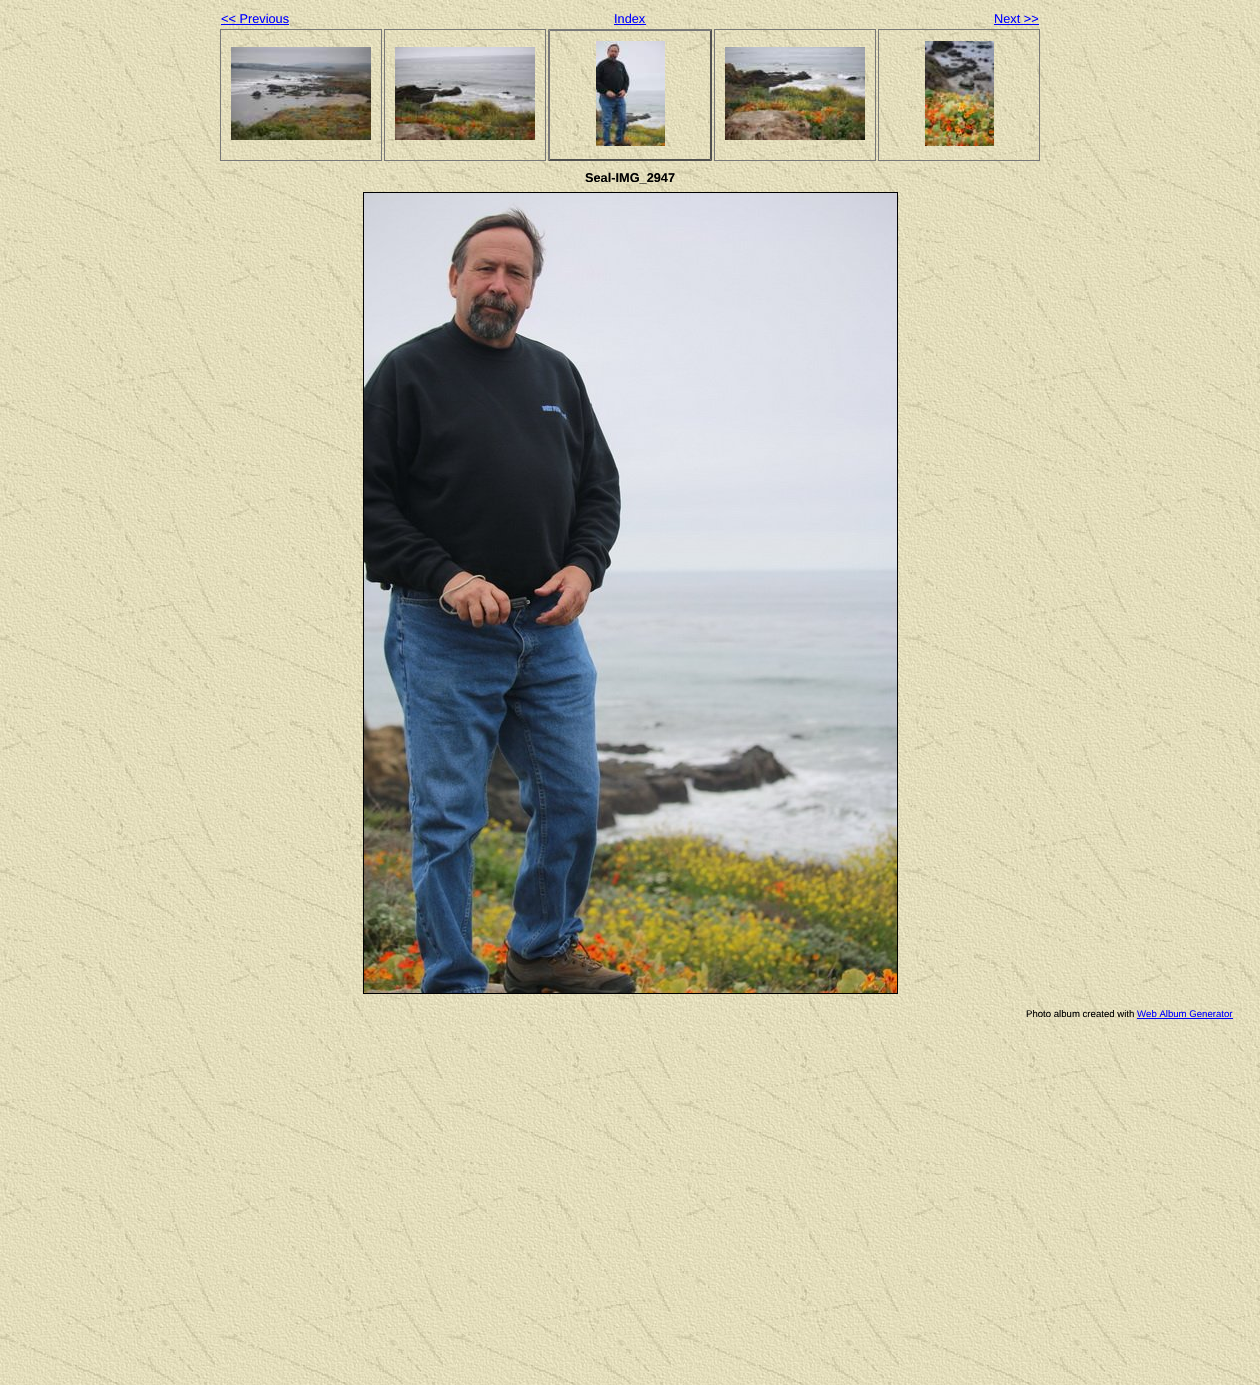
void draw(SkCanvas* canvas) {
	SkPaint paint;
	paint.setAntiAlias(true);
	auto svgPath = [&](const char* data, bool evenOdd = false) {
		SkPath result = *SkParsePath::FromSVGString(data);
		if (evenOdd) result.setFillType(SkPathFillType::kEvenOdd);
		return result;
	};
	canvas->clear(0xffffffff);
	canvas->drawImageRect(SkImages::DeferredFromEncodedData(SkData::MakeFromFileName("img1.png")), SkRect::MakeXYWH(0, 0, 1260, 1385), SkSamplingOptions());
	SkFont f1(fontMgr->matchFamilyStyle("Liberation Sans", SkFontStyle::Normal()), 12.75);
	f1.setSubpixel(true);
	paint.setColor(0xff0000ff);
	canvas->drawString("<< Previous", 221, 23, f1, paint);
	canvas->drawRect(SkRect::MakeXYWH(221, 24, 68, 1), paint);
	canvas->drawString("Index", 614, 23, f1, paint);
	canvas->drawRect(SkRect::MakeXYWH(614, 24, 32, 1), paint);
	canvas->drawString("Next >>", 994, 23, f1, paint);
	canvas->drawRect(SkRect::MakeXYWH(994, 24, 45, 1), paint);
	paint.setStroke(true);
	paint.setStrokeWidth(1);
	paint.setColor(0xff787878);
	canvas->drawRect(SkRect::MakeXYWH(220.5, 29.5, 161, 131), paint);
	canvas->drawImageRect(SkImages::DeferredFromEncodedData(SkData::MakeFromFileName("img2.png")), SkRect::MakeXYWH(231, 47, 140, 93), SkSamplingOptions());
	canvas->drawRect(SkRect::MakeXYWH(384.5, 29.5, 161, 131), paint);
	canvas->drawImageRect(SkImages::DeferredFromEncodedData(SkData::MakeFromFileName("img3.png")), SkRect::MakeXYWH(395, 47, 140, 93), SkSamplingOptions());
	paint.setStroke(false);
	canvas->drawPath(svgPath("M548 29H712L710 31H550Z"), paint);
	paint.setColor(0xff505050);
	canvas->drawPath(svgPath("M712 29V161L710 159V31Z"), paint);
	canvas->drawPath(svgPath("M712 161H548L550 159H710Z"), paint);
	paint.setColor(0xff787878);
	canvas->drawPath(svgPath("M548 161V29L550 31V159Z"), paint);
	canvas->drawImageRect(SkImages::DeferredFromEncodedData(SkData::MakeFromFileName("img4.png")), SkRect::MakeXYWH(596, 41, 69, 105), SkSamplingOptions());
	paint.setStroke(true);
	canvas->drawRect(SkRect::MakeXYWH(714.5, 29.5, 161, 131), paint);
	canvas->drawImageRect(SkImages::DeferredFromEncodedData(SkData::MakeFromFileName("img5.png")), SkRect::MakeXYWH(725, 47, 140, 93), SkSamplingOptions());
	canvas->drawRect(SkRect::MakeXYWH(878.5, 29.5, 161, 131), paint);
	canvas->drawImageRect(SkImages::DeferredFromEncodedData(SkData::MakeFromFileName("img6.png")), SkRect::MakeXYWH(925, 41, 69, 105), SkSamplingOptions());
	SkFont f2(fontMgr->matchFamilyStyle("Liberation Sans", SkFontStyle::Bold()), 12.75);
	f2.setSubpixel(true);
	paint.setStroke(false);
	paint.setColor(0xff000000);
	canvas->drawString("Seal-IMG_2947", 585, 182, f2, paint);
	paint.setStroke(true);
	canvas->drawRect(SkRect::MakeXYWH(363.5, 192.5, 534, 801), paint);
	canvas->drawImageRect(SkImages::DeferredFromEncodedData(SkData::MakeFromFileName("img7.png")), SkRect::MakeXYWH(364, 193, 533, 800), SkSamplingOptions());
	SkFont f3(fontMgr->matchFamilyStyle("Liberation Sans", SkFontStyle::Normal()), 9.6);
	f3.setSubpixel(true);
	paint.setStroke(false);
	canvas->drawString("Photo album created with", 1026, 1017, f3, paint);
	paint.setColor(0xff0000ff);
	canvas->drawString("Web Album Generator", 1137, 1017, f3, paint);
	canvas->drawRect(SkRect::MakeXYWH(1137, 1018, 96, 1), paint);
}
